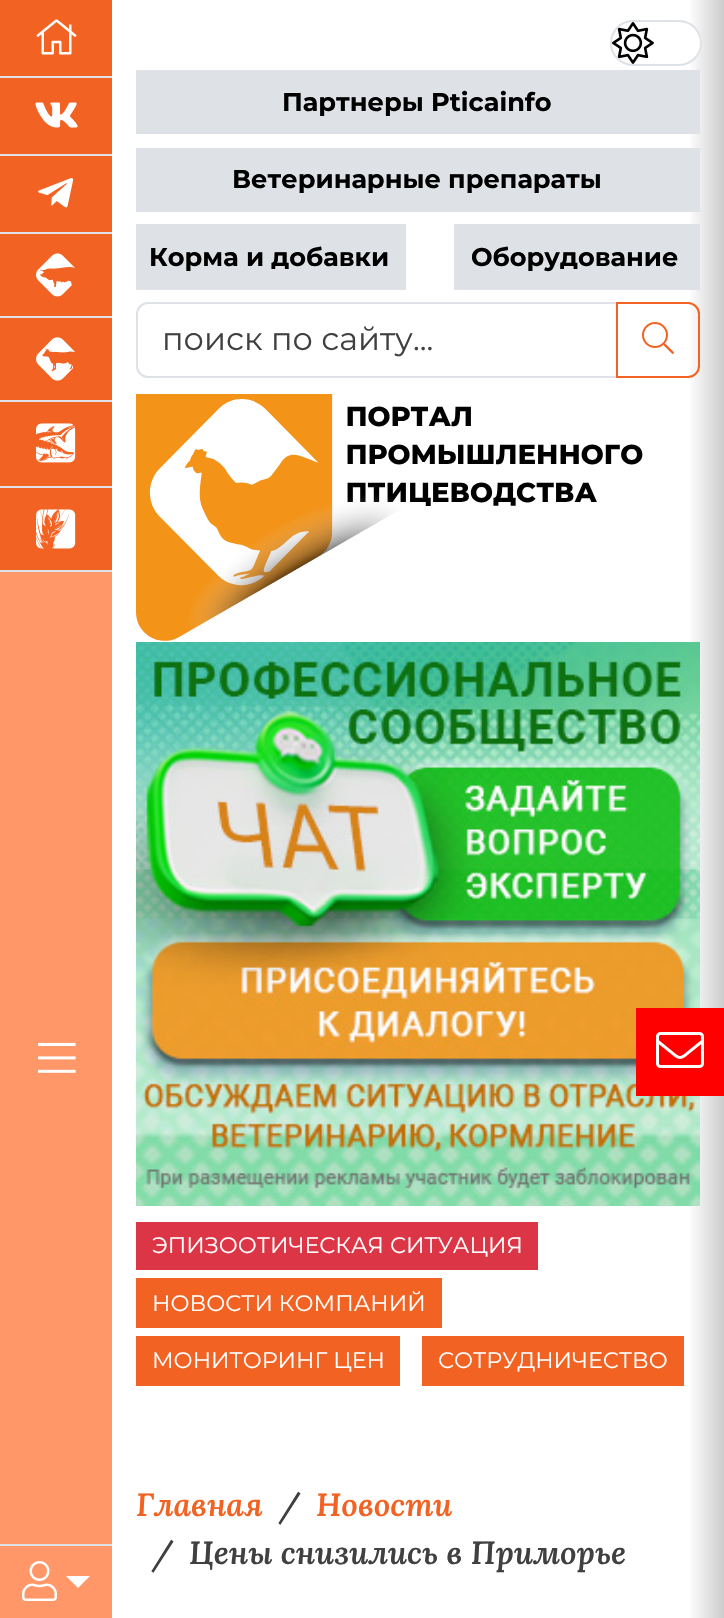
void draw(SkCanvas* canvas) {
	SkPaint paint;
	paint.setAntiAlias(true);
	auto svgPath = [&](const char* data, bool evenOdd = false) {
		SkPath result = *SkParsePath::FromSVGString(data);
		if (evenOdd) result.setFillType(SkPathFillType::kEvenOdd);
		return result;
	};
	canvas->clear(0xffffffff);
	{
		const SkColor colors[] = {0xffcccccc, 0xffffffff, 0xffffffff, 0xffcccccc};
		const float stops[] = {0, 0.12, 0.95, 1};
		const SkPoint ends[] = {{0, 809}, {724, 809}};
		paint.setShader(SkGradientShader::MakeLinear(ends, colors, stops, 4, SkTileMode::kClamp));
		paint.setAlpha(255);
	}
	canvas->drawRect(SkRect::MakeXYWH(690, 0, 34, 1618), paint);
	paint.setShader(nullptr);
	paint.setColor(0xffff9768);
	canvas->drawRect(SkRect::MakeXYWH(0, 572, 112, 1046), paint);
	paint.setColor(0xfff26222);
	canvas->drawRect(SkRect::MakeXYWH(0, 0, 112, 76), paint);
	paint.setColor(0xffdee2e6);
	canvas->drawRect(SkRect::MakeXYWH(0, 76, 112, 2), paint);
	canvas->drawImageRect(SkImages::DeferredFromEncodedData(SkData::MakeFromFileName("img1.png")), SkRect::MakeXYWH(36, 19, 41, 36), SkSamplingOptions());
	paint.setColor(0xfff26222);
	canvas->drawRect(SkRect::MakeXYWH(0, 78, 112, 76), paint);
	paint.setColor(0xffdee2e6);
	canvas->drawRect(SkRect::MakeXYWH(0, 154, 112, 2), paint);
	canvas->drawImageRect(SkImages::DeferredFromEncodedData(SkData::MakeFromFileName("img2.png")), SkRect::MakeXYWH(35, 102, 43, 26), SkSamplingOptions());
	paint.setColor(0xfff26222);
	canvas->drawRect(SkRect::MakeXYWH(0, 156, 112, 76), paint);
	paint.setColor(0xffdee2e6);
	canvas->drawRect(SkRect::MakeXYWH(0, 232, 112, 2), paint);
	canvas->drawImageRect(SkImages::DeferredFromEncodedData(SkData::MakeFromFileName("img3.png")), SkRect::MakeXYWH(38, 178, 36, 30), SkSamplingOptions());
	paint.setColor(0xfff26222);
	canvas->drawRect(SkRect::MakeXYWH(0, 234, 112, 82), paint);
	paint.setColor(0xffdee2e6);
	canvas->drawRect(SkRect::MakeXYWH(0, 316, 112, 2), paint);
	canvas->drawImageRect(SkImages::DeferredFromEncodedData(SkData::MakeFromFileName("img4.png")), SkRect::MakeXYWH(36, 253, 39, 44), SkSamplingOptions());
	paint.setColor(0xfff26222);
	canvas->drawRect(SkRect::MakeXYWH(0, 318, 112, 82), paint);
	paint.setColor(0xffdee2e6);
	canvas->drawRect(SkRect::MakeXYWH(0, 400, 112, 2), paint);
	canvas->drawImageRect(SkImages::DeferredFromEncodedData(SkData::MakeFromFileName("img5.png")), SkRect::MakeXYWH(36, 337, 39, 44), SkSamplingOptions());
	paint.setColor(0xfff26222);
	canvas->drawRect(SkRect::MakeXYWH(0, 402, 112, 84), paint);
	paint.setColor(0xffdee2e6);
	canvas->drawRect(SkRect::MakeXYWH(0, 486, 112, 2), paint);
	canvas->drawImageRect(SkImages::DeferredFromEncodedData(SkData::MakeFromFileName("img6.png")), SkRect::MakeXYWH(36, 423, 40, 40), SkSamplingOptions());
	paint.setColor(0xfff26222);
	canvas->drawRect(SkRect::MakeXYWH(0, 488, 112, 82), paint);
	paint.setColor(0xffdee2e6);
	canvas->drawRect(SkRect::MakeXYWH(0, 570, 112, 2), paint);
	canvas->drawImageRect(SkImages::DeferredFromEncodedData(SkData::MakeFromFileName("img7.png")), SkRect::MakeXYWH(36, 509, 40, 40), SkSamplingOptions());
	canvas->drawImageRect(SkImages::DeferredFromEncodedData(SkData::MakeFromFileName("img8.png")), SkRect::MakeXYWH(38, 1042, 38, 31), SkSamplingOptions());
	canvas->drawRect(SkRect::MakeXYWH(0, 1544, 112, 2), paint);
	canvas->drawImageRect(SkImages::DeferredFromEncodedData(SkData::MakeFromFileName("img9.png")), SkRect::MakeXYWH(22, 1561, 35, 40), SkSamplingOptions());
	paint.setColor(0xffffffff);
	canvas->drawPath(svgPath("M66 1576H90L78 1588Z"), paint);
	canvas->drawRoundRect(SkRect::MakeXYWH(610, 20, 92, 46), 23, 23, paint);
	canvas->drawImageRect(SkImages::DeferredFromEncodedData(SkData::MakeFromFileName("img10.png")), SkRect::MakeXYWH(612, 22, 42, 42), SkSamplingOptions());
	paint.setStroke(true);
	paint.setStrokeWidth(2);
	paint.setColor(0xffdee2e6);
	canvas->drawRoundRect(SkRect::MakeXYWH(611, 21, 90, 44), 22, 22, paint);
	paint.setStroke(false);
	canvas->drawRect(SkRect::MakeXYWH(136, 70, 564, 64), paint);
	SkFont f1(fontMgr->matchFamilyStyle("Montserrat", SkFontStyle::Bold()), 25.6);
	f1.setSubpixel(true);
	paint.setColor(0xff000000);
	canvas->drawString("Партнеры Pticainfo", 282, 111, f1, paint);
	paint.setColor(0xffdee2e6);
	canvas->drawRect(SkRect::MakeXYWH(136, 148, 564, 64), paint);
	paint.setColor(0xff000000);
	canvas->drawString("Ветеринарные препараты", 232, 188, f1, paint);
	paint.setColor(0xffdee2e6);
	canvas->drawRect(SkRect::MakeXYWH(136, 224, 270, 66), paint);
	paint.setColor(0xff000000);
	canvas->drawString("Корма и добавки", 149, 266, f1, paint);
	paint.setColor(0xffdee2e6);
	canvas->drawRect(SkRect::MakeXYWH(454, 224, 246, 66), paint);
	paint.setColor(0xff000000);
	canvas->drawString("Оборудование", 471, 266, f1, paint);
	paint.setStroke(true);
	paint.setColor(0xffdee2e6);
	canvas->drawPath(svgPath("M148 303H617V377H148C142 377 137 372 137 366V314C137 308 142 303 148 303Z"), paint);
	SkFont f2(fontMgr->matchFamilyStyle("Montserrat", SkFontStyle::Normal()), 32);
	f2.setSubpixel(true);
	paint.setStroke(false);
	paint.setColor(0xff404040);
	canvas->drawString("поиск по сайту...", 162, 350, f2, paint);
	paint.setStroke(true);
	paint.setColor(0xfff26222);
	canvas->drawPath(svgPath("M617 303H688C694 303 699 308 699 314V366C699 372 694 377 688 377H617Z"), paint);
	canvas->drawImageRect(SkImages::DeferredFromEncodedData(SkData::MakeFromFileName("img11.png")), SkRect::MakeXYWH(642, 322, 32, 32), SkSamplingOptions());
	canvas->drawImageRect(SkImages::DeferredFromEncodedData(SkData::MakeFromFileName("img12.png")), SkRect::MakeXYWH(136, 394, 507, 247), SkSamplingOptions());
	canvas->drawImageRect(SkImages::DeferredFromEncodedData(SkData::MakeFromFileName("img13.png")), SkRect::MakeXYWH(136, 642, 564, 564), SkSamplingOptions());
	paint.setStroke(false);
	paint.setColor(0xffdc3545);
	canvas->drawRect(SkRect::MakeXYWH(136, 1222, 402, 48), paint);
	SkFont f3(fontMgr->matchFamilyStyle("Montserrat", SkFontStyle::Normal()), 22.4);
	f3.setSubpixel(true);
	paint.setColor(0xffffffff);
	canvas->drawString("ЭПИЗООТИЧЕСКАЯ СИТУАЦИЯ", 152, 1253, f3, paint);
	paint.setColor(0xfff26222);
	canvas->drawRect(SkRect::MakeXYWH(136, 1278, 306, 50), paint);
	paint.setColor(0xffffffff);
	canvas->drawString("НОВОСТИ КОМПАНИЙ", 152, 1311, f3, paint);
	paint.setColor(0xfff26222);
	canvas->drawRect(SkRect::MakeXYWH(136, 1336, 264, 50), paint);
	paint.setColor(0xffffffff);
	canvas->drawString("МОНИТОРИНГ ЦЕН", 152, 1368, f3, paint);
	paint.setColor(0xfff26222);
	canvas->drawRect(SkRect::MakeXYWH(422, 1336, 262, 50), paint);
	paint.setColor(0xffffffff);
	canvas->drawString("СОТРУДНИЧЕСТВО", 438, 1368, f3, paint);
	paint.setColor(0xffff0000);
	canvas->drawRect(SkRect::MakeXYWH(636, 1008, 88, 88), paint);
	canvas->drawImageRect(SkImages::DeferredFromEncodedData(SkData::MakeFromFileName("img14.png")), SkRect::MakeXYWH(656, 1032, 48, 36), SkSamplingOptions());
	SkFont f4(fontMgr->matchFamilyStyle("Lora", SkFontStyle(600, SkFontStyle::kNormal_Width, SkFontStyle::kItalic_Slant)), 32);
	f4.setSubpixel(true);
	paint.setColor(0xfff26222);
	canvas->drawString("Главная", 136, 1516, f4, paint);
	paint.setColor(0xff404040);
	canvas->drawString("/", 279, 1516, f4, paint);
	paint.setColor(0xfff26222);
	canvas->drawString("Новости", 316, 1516, f4, paint);
	paint.setColor(0xff404040);
	canvas->drawString("/", 152, 1564, f4, paint);
	canvas->drawString("Цены снизились в Приморье", 189, 1564, f4, paint);
}
